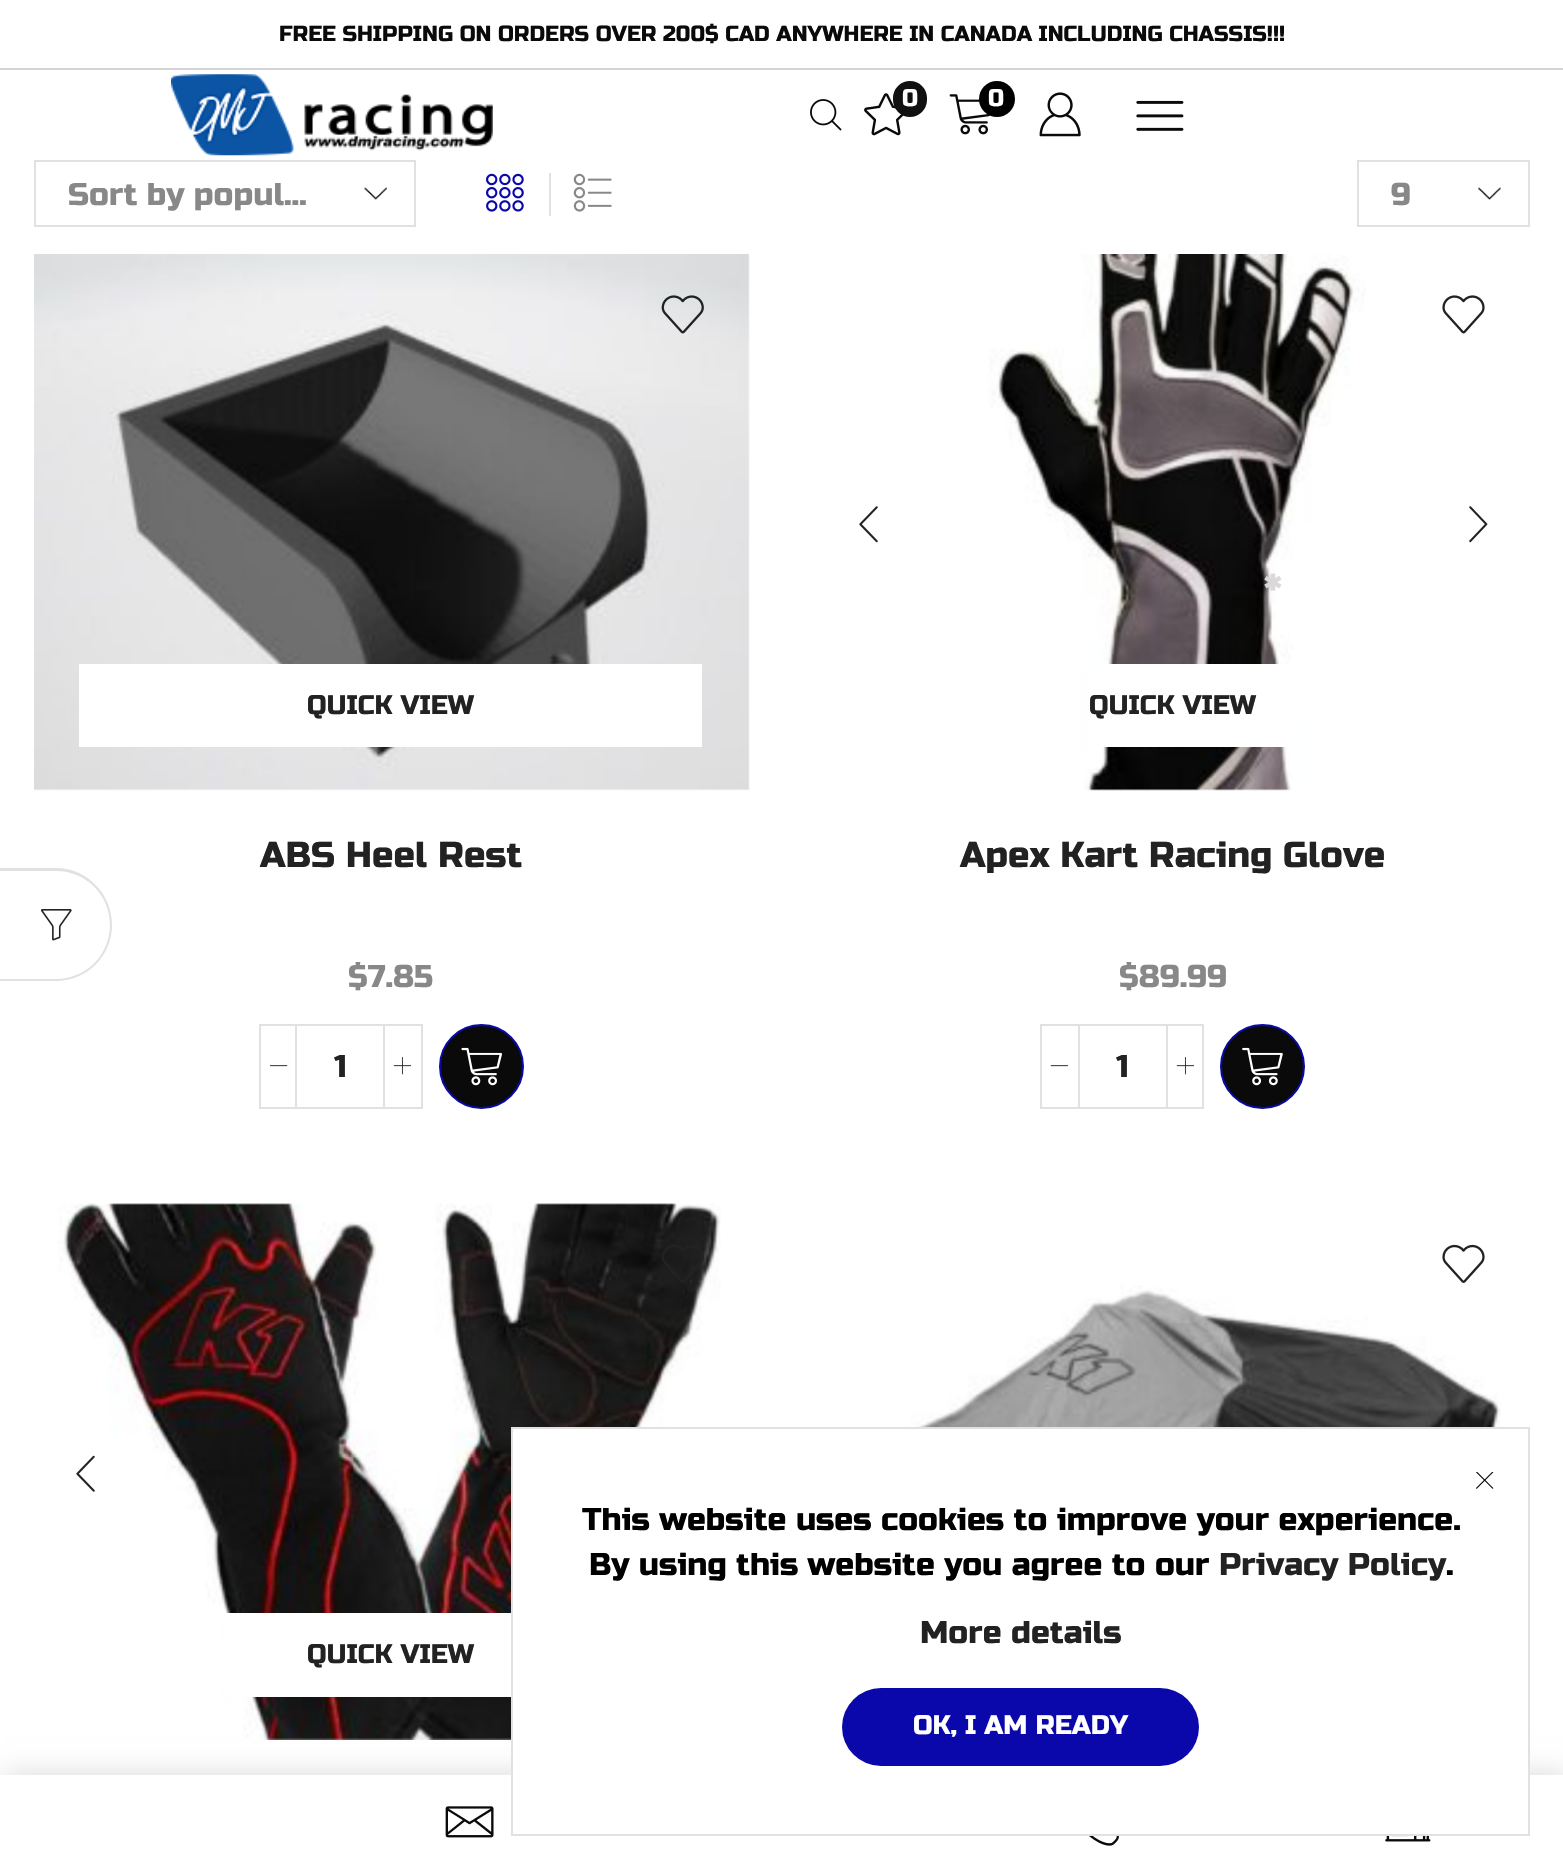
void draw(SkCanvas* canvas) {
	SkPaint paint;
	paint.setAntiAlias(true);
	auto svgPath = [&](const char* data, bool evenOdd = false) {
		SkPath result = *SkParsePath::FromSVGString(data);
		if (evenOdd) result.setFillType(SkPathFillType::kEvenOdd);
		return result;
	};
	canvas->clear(0xffffffff);
	paint.setColor(0xffe1e1e1);
	canvas->drawPath(svgPath("M0 868H56C87 868 112 894 112 925C112 956 87 981 56 981H0ZM0 871H56C86 871 110 895 110 925C110 955 86 979 56 979H0Z", true), paint);
	canvas->drawImageRect(SkImages::DeferredFromEncodedData(SkData::MakeFromFileName("img1.png")), SkRect::MakeXYWH(41, 909, 31, 32), SkSamplingOptions());
	paint.setColor(0xffd4d4d4);
	canvas->drawRect(SkRect::MakeXYWH(0, 68, 1563, 2), paint);
	SkFont f1(fontMgr->matchFamilyStyle("Russo One", SkFontStyle::Normal()), 21.75);
	f1.setSubpixel(true);
	paint.setColor(0xff0a0a0a);
	canvas->drawString("FREE SHIPPING ON ORDERS OVER 200$ CAD ANYWHERE IN CANADA INCLUDING CHASSIS!!!", 279, 41, f1, paint);
	canvas->drawImageRect(SkImages::DeferredFromEncodedData(SkData::MakeFromFileName("img2.png")), SkRect::MakeXYWH(171, 74, 322, 82), SkSamplingOptions());
	canvas->drawImageRect(SkImages::DeferredFromEncodedData(SkData::MakeFromFileName("img3.png")), SkRect::MakeXYWH(810, 99, 32, 32), SkSamplingOptions());
	canvas->drawImageRect(SkImages::DeferredFromEncodedData(SkData::MakeFromFileName("img4.png")), SkRect::MakeXYWH(864, 93, 40, 43), SkSamplingOptions());
	paint.setColor(0xff111111);
	canvas->drawRoundRect(SkRect::MakeXYWH(893, 81, 34, 36), 17, 17, paint);
	SkFont f2(fontMgr->matchFamilyStyle("Russo One", SkFontStyle::Normal()), 24);
	f2.setSubpixel(true);
	paint.setColor(0xffffffff);
	canvas->drawString("0", 902, 106, f2, paint);
	canvas->drawImageRect(SkImages::DeferredFromEncodedData(SkData::MakeFromFileName("img5.png")), SkRect::MakeXYWH(949, 94, 41, 41), SkSamplingOptions());
	paint.setColor(0xff000000);
	canvas->drawCircle(997, 99, 18, paint);
	paint.setColor(0xffffffff);
	canvas->drawString("0", 988, 106, f2, paint);
	canvas->drawImageRect(SkImages::DeferredFromEncodedData(SkData::MakeFromFileName("img6.png")), SkRect::MakeXYWH(1136, 100, 48, 31), SkSamplingOptions());
	canvas->drawImageRect(SkImages::DeferredFromEncodedData(SkData::MakeFromFileName("img7.png")), SkRect::MakeXYWH(1039, 92, 42, 45), SkSamplingOptions());
	canvas->drawImageRect(SkImages::DeferredFromEncodedData(SkData::MakeFromFileName("img18.png")), SkRect::MakeXYWH(988, 254, 378, 537), SkSamplingOptions());
	SkFont f3(fontMgr->matchFamilyStyle("Russo One", SkFontStyle::Normal()), 35.9);
	f3.setSubpixel(true);
	paint.setColor(0xffdad8d8);
	canvas->drawString("*", 1264, 599, f3, paint);
	canvas->drawImageRect(SkImages::DeferredFromEncodedData(SkData::MakeFromFileName("img8.png")), SkRect::MakeXYWH(364, 187, 23, 13), SkSamplingOptions());
	paint.setStroke(true);
	paint.setStrokeWidth(2);
	paint.setColor(0xffe1e1e1);
	canvas->drawRect(SkRect::MakeXYWH(35, 161, 380, 65), paint);
	SkFont f4(fontMgr->matchFamilyStyle("Russo One", SkFontStyle::Normal()), 31.5);
	f4.setSubpixel(true);
	paint.setStroke(false);
	paint.setColor(0xff888888);
	canvas->drawString("Sort by popul…", 68, 205, f4, paint);
	canvas->drawImageRect(SkImages::DeferredFromEncodedData(SkData::MakeFromFileName("img9.png")), SkRect::MakeXYWH(486, 173, 38, 39), SkSamplingOptions());
	paint.setColor(0xffe1e1e1);
	canvas->drawRect(SkRect::MakeXYWH(549, 173, 2, 43), paint);
	canvas->drawImageRect(SkImages::DeferredFromEncodedData(SkData::MakeFromFileName("img10.png")), SkRect::MakeXYWH(573, 173, 39, 39), SkSamplingOptions());
	canvas->drawImageRect(SkImages::DeferredFromEncodedData(SkData::MakeFromFileName("img11.png")), SkRect::MakeXYWH(1478, 187, 23, 13), SkSamplingOptions());
	paint.setStroke(true);
	canvas->drawRect(SkRect::MakeXYWH(1358, 161, 171, 65), paint);
	paint.setStroke(false);
	paint.setColor(0xff888888);
	canvas->drawString("9", 1391, 205, f4, paint);
	canvas->drawImageRect(SkImages::DeferredFromEncodedData(SkData::MakeFromFileName("img12.png")), SkRect::MakeXYWH(34, 254, 716, 537), SkSamplingOptions());
	canvas->drawImageRect(SkImages::DeferredFromEncodedData(SkData::MakeFromFileName("img13.png")), SkRect::MakeXYWH(661, 295, 43, 39), SkSamplingOptions());
	paint.setColor(0xffffffff);
	canvas->drawRect(SkRect::MakeXYWH(79, 664, 623, 83), paint);
	SkFont f5(fontMgr->matchFamilyStyle("Russo One", SkFontStyle::Normal()), 26.75);
	f5.setSubpixel(true);
	paint.setColor(0xff222222);
	canvas->drawString("QUICK VIEW", 307, 714, f5, paint);
	canvas->drawString("ABS Heel Rest", 260, 867, f3, paint);
	paint.setColor(0xff888888);
	canvas->drawString("$7.85", 348, 987, f4, paint);
	paint.setStroke(true);
	paint.setColor(0xffe1e1e1);
	canvas->drawRect(SkRect::MakeXYWH(260, 1025, 36, 83), paint);
	canvas->drawImageRect(SkImages::DeferredFromEncodedData(SkData::MakeFromFileName("img14.png")), SkRect::MakeXYWH(270, 1065, 18, 2), SkSamplingOptions());
	paint.setStroke(false);
	canvas->drawRect(SkRect::MakeXYWH(297, 1024, 86, 2), paint);
	canvas->drawRect(SkRect::MakeXYWH(297, 1107, 86, 2), paint);
	paint.setColor(0xff222222);
	canvas->drawString("1", 334, 1077, f4, paint);
	paint.setStroke(true);
	paint.setColor(0xffe1e1e1);
	canvas->drawRect(SkRect::MakeXYWH(384, 1025, 38, 83), paint);
	canvas->drawImageRect(SkImages::DeferredFromEncodedData(SkData::MakeFromFileName("img15.png")), SkRect::MakeXYWH(393, 1057, 19, 18), SkSamplingOptions());
	paint.setStroke(false);
	paint.setColor(0xff0a0a0a);
	canvas->drawCircle(481.5, 1066.5, 41.5, paint);
	paint.setStroke(true);
	paint.setColor(0xff0a08aa);
	canvas->drawCircle(481.5, 1066.5, 41.5, paint);
	canvas->drawImageRect(SkImages::DeferredFromEncodedData(SkData::MakeFromFileName("img16.png")), SkRect::MakeXYWH(461, 1047, 42, 39), SkSamplingOptions());
	canvas->drawImageRect(SkImages::DeferredFromEncodedData(SkData::MakeFromFileName("img17.png")), SkRect::MakeXYWH(859, 506, 19, 37), SkSamplingOptions());
	canvas->drawImageRect(SkImages::DeferredFromEncodedData(SkData::MakeFromFileName("img19.png")), SkRect::MakeXYWH(1469, 506, 19, 37), SkSamplingOptions());
	canvas->drawImageRect(SkImages::DeferredFromEncodedData(SkData::MakeFromFileName("img20.png")), SkRect::MakeXYWH(1442, 295, 43, 39), SkSamplingOptions());
	paint.setStroke(false);
	paint.setColor(0xffffffff);
	canvas->drawRect(SkRect::MakeXYWH(1100, 664, 194, 83), paint);
	paint.setColor(0xff222222);
	canvas->drawString("QUICK VIEW", 1089, 714, f5, paint);
	canvas->drawString("Apex Kart Racing Glove", 960, 867, f3, paint);
	paint.setColor(0xff888888);
	canvas->drawString("$89.99", 1119, 987, f4, paint);
	paint.setStroke(true);
	paint.setColor(0xffe1e1e1);
	canvas->drawRect(SkRect::MakeXYWH(1041, 1025, 38, 83), paint);
	canvas->drawImageRect(SkImages::DeferredFromEncodedData(SkData::MakeFromFileName("img21.png")), SkRect::MakeXYWH(1050, 1065, 19, 2), SkSamplingOptions());
	paint.setStroke(false);
	canvas->drawRect(SkRect::MakeXYWH(1080, 1024, 86, 2), paint);
	canvas->drawRect(SkRect::MakeXYWH(1080, 1107, 86, 2), paint);
	paint.setColor(0xff222222);
	canvas->drawString("1", 1116, 1077, f4, paint);
	paint.setStroke(true);
	paint.setColor(0xffe1e1e1);
	canvas->drawRect(SkRect::MakeXYWH(1167, 1025, 36, 83), paint);
	canvas->drawImageRect(SkImages::DeferredFromEncodedData(SkData::MakeFromFileName("img15.png")), SkRect::MakeXYWH(1176, 1057, 19, 18), SkSamplingOptions());
	paint.setStroke(false);
	paint.setColor(0xff0a0a0a);
	canvas->drawCircle(1262.5, 1066.5, 41.5, paint);
	paint.setStroke(true);
	paint.setColor(0xff0a08aa);
	canvas->drawCircle(1262.5, 1066.5, 41.5, paint);
	canvas->drawImageRect(SkImages::DeferredFromEncodedData(SkData::MakeFromFileName("img22.png")), SkRect::MakeXYWH(1242, 1047, 41, 39), SkSamplingOptions());
	canvas->drawImageRect(SkImages::DeferredFromEncodedData(SkData::MakeFromFileName("img23.png")), SkRect::MakeXYWH(1442, 1244, 43, 39), SkSamplingOptions());
	canvas->drawImageRect(SkImages::DeferredFromEncodedData(SkData::MakeFromFileName("img24.png")), SkRect::MakeXYWH(839, 1285, 662, 142), SkSamplingOptions());
	canvas->drawImageRect(SkImages::DeferredFromEncodedData(SkData::MakeFromFileName("img25.png")), SkRect::MakeXYWH(58, 1203, 663, 537), SkSamplingOptions());
	canvas->drawImageRect(SkImages::DeferredFromEncodedData(SkData::MakeFromFileName("img26.png")), SkRect::MakeXYWH(76, 1455, 19, 37), SkSamplingOptions());
	canvas->drawImageRect(SkImages::DeferredFromEncodedData(SkData::MakeFromFileName("img27.png")), SkRect::MakeXYWH(662, 1245, 42, 38), SkSamplingOptions());
	paint.setStroke(false);
	paint.setColor(0xffffffff);
	canvas->drawRect(SkRect::MakeXYWH(224, 1613, 287, 84), paint);
	paint.setColor(0xff222222);
	canvas->drawString("QUICK VIEW", 307, 1663, f5, paint);
	paint.setColor(0x26000000);
	paint.setMaskFilter(SkMaskFilter::MakeBlur(kNormal_SkBlurStyle, 13.5));
	canvas->drawRect(SkRect::MakeXYWH(5, 1775, 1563, 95), paint);
	paint.setMaskFilter(nullptr);
	paint.setColor(0xffffffff);
	canvas->drawRect(SkRect::MakeXYWH(513, 1429, 1015, 346), paint);
	canvas->drawRect(SkRect::MakeXYWH(0, 1775, 1563, 93), paint);
	paint.setStroke(true);
	paint.setColor(0xffe1e1e1);
	canvas->drawRect(SkRect::MakeXYWH(512, 1428, 1017, 407), paint);
	canvas->drawImageRect(SkImages::DeferredFromEncodedData(SkData::MakeFromFileName("img28.png")), SkRect::MakeXYWH(1476, 1472, 18, 17), SkSamplingOptions());
	paint.setStroke(false);
	paint.setColor(0xff000000);
	canvas->drawString("This website uses cookies to improve your experience.", 582, 1530, f4, paint);
	canvas->drawString("By using this website you agree to our", 589, 1575, f4, paint);
	paint.setColor(0xff222222);
	canvas->drawString("Privacy Policy", 1219, 1575, f4, paint);
	paint.setColor(0xff000000);
	canvas->drawString(".", 1446, 1575, f4, paint);
	paint.setColor(0xff222222);
	canvas->drawString("More details", 920, 1643, f4, paint);
	paint.setColor(0xff0a08aa);
	canvas->drawRoundRect(SkRect::MakeXYWH(842, 1688, 357, 78), 39, 39, paint);
	paint.setColor(0xffffffff);
	canvas->drawString("OK, I AM READY", 913, 1734, f5, paint);
	canvas->drawImageRect(SkImages::DeferredFromEncodedData(SkData::MakeFromFileName("img29.png")), SkRect::MakeXYWH(445, 1806, 49, 32), SkSamplingOptions());
	canvas->drawImageRect(SkImages::DeferredFromEncodedData(SkData::MakeFromFileName("img30.png")), SkRect::MakeXYWH(1089, 1836, 30, 10), SkSamplingOptions());
	canvas->drawImageRect(SkImages::DeferredFromEncodedData(SkData::MakeFromFileName("img31.png")), SkRect::MakeXYWH(1385, 1836, 46, 6), SkSamplingOptions());
}
